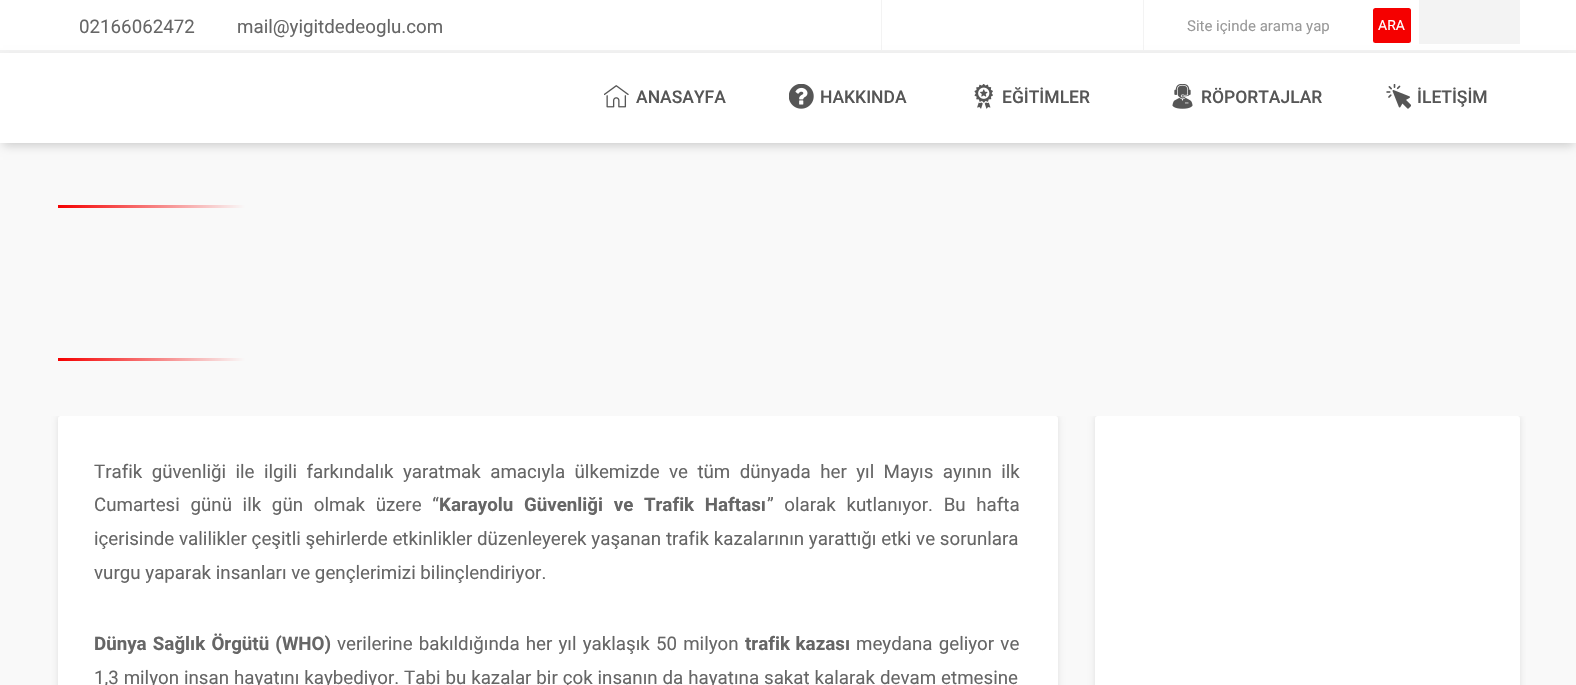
void draw(SkCanvas* canvas) {
	SkPaint paint;
	paint.setAntiAlias(true);
	auto spacedText = [&](const char* s, float x, float y, const SkFont& font, const SkPaint& ink, float letter, float word) {
		std::vector<SkGlyphID> glyphs(font.countText(s, strlen(s), SkTextEncoding::kUTF8));
		std::vector<float> xs(glyphs.size());
		font.textToGlyphs(s, strlen(s), SkTextEncoding::kUTF8, glyphs);
		font.getXPos(glyphs, xs, x);
		float extra = 0;
		for (size_t i = 0; i < glyphs.size(); i++) {
			xs[i] += extra;
			extra += letter + word * (glyphs[i] == font.unicharToGlyph(' '));
		}
		canvas->drawTextBlob(SkTextBlob::MakeFromPosHGlyphs(glyphs, xs, y, font), 0, 0, ink);
	};
	canvas->clear(0xfff9f9f9);
	paint.setColor(0xffffffff);
	canvas->drawRect(SkRect::MakeXYWH(0, 0, 1576, 50), paint);
	paint.setColor(0xfff3f3f3);
	canvas->drawRect(SkRect::MakeXYWH(0, 50, 1576, 3), paint);
	SkFont f1(fontMgr->matchFamilyStyle("Roboto", SkFontStyle::Normal()), 18.75);
	f1.setSubpixel(true);
	paint.setColor(0xff666666);
	canvas->drawString("02166062472", 79, 33, f1, paint);
	canvas->drawString("mail@yigitdedeoglu.com", 237, 33, f1, paint);
	paint.setColor(0xfff3f3f3);
	canvas->drawRect(SkRect::MakeXYWH(881, 0, 1, 50), paint);
	canvas->drawRect(SkRect::MakeXYWH(1143, 0, 1, 50), paint);
	SkFont f2(fontMgr->matchFamilyStyle("Roboto", SkFontStyle::Normal()), 15);
	f2.setSubpixel(true);
	paint.setColor(0xff999999);
	canvas->drawString("Site içinde arama yap", 1187, 31, f2, paint);
	paint.setColor(0xfff50000);
	canvas->drawRoundRect(SkRect::MakeXYWH(1373, 8, 38, 35), 2.5, 2.5, paint);
	SkFont f3(fontMgr->matchFamilyStyle("Roboto", SkFontStyle::Normal()), 14);
	f3.setSubpixel(true);
	paint.setColor(0xffffffff);
	canvas->drawString("ARA", 1378, 30, f3, paint);
	paint.setColor(0xfff3f3f3);
	canvas->drawRect(SkRect::MakeXYWH(1419, 0, 101, 44), paint);
	paint.setColor(0x33000000);
	paint.setMaskFilter(SkMaskFilter::MakeBlur(kNormal_SkBlurStyle, 5));
	canvas->drawRect(SkRect::MakeXYWH(3, 60, 1571, 85), paint);
	paint.setMaskFilter(nullptr);
	paint.setColor(0xffffffff);
	canvas->drawRect(SkRect::MakeXYWH(0, 53, 1576, 90), paint);
	canvas->drawImageRect(SkImages::DeferredFromEncodedData(SkData::MakeFromFileName("img1.png")), SkRect::MakeXYWH(604, 85, 25, 23), SkSamplingOptions());
	SkFont f4(fontMgr->matchFamilyStyle("Roboto", SkFontStyle(500, SkFontStyle::kNormal_Width, SkFontStyle::kUpright_Slant)), 17.5);
	f4.setSubpixel(true);
	paint.setColor(0xff565656);
	canvas->drawString("ANASAYFA", 636, 103, f4, paint);
	canvas->drawImageRect(SkImages::DeferredFromEncodedData(SkData::MakeFromFileName("img2.png")), SkRect::MakeXYWH(789, 84, 25, 25), SkSamplingOptions());
	canvas->drawString("HAKKINDA", 820, 103, f4, paint);
	canvas->drawImageRect(SkImages::DeferredFromEncodedData(SkData::MakeFromFileName("img3.png")), SkRect::MakeXYWH(974, 84, 19, 25), SkSamplingOptions());
	canvas->drawString("EĞİTİMLER", 1002, 103, f4, paint);
	canvas->drawImageRect(SkImages::DeferredFromEncodedData(SkData::MakeFromFileName("img4.png")), SkRect::MakeXYWH(1172, 84, 21, 25), SkSamplingOptions());
	canvas->drawString("RÖPORTAJLAR", 1201, 103, f4, paint);
	canvas->drawImageRect(SkImages::DeferredFromEncodedData(SkData::MakeFromFileName("img5.png")), SkRect::MakeXYWH(1386, 84, 25, 25), SkSamplingOptions());
	canvas->drawString("İLETİŞİM", 1417, 103, f4, paint);
	{
		const SkColor colors[] = {0xfff50000, 0xfff9f9f9};
		const float stops[] = {0, 1};
		const SkPoint ends[] = {{58, 206}, {245, 206}};
		paint.setShader(SkGradientShader::MakeLinear(ends, colors, stops, 2, SkTileMode::kClamp));
		paint.setAlpha(255);
	}
	canvas->drawRect(SkRect::MakeXYWH(58, 205, 187, 3), paint);
	{
		const SkColor colors[] = {0xfff50000, 0xfff9f9f9};
		const float stops[] = {0, 1};
		const SkPoint ends[] = {{58, 359}, {245, 359}};
		paint.setShader(SkGradientShader::MakeLinear(ends, colors, stops, 2, SkTileMode::kClamp));
		paint.setAlpha(255);
	}
	canvas->drawRect(SkRect::MakeXYWH(58, 358, 187, 3), paint);
	canvas->save();
	canvas->clipRect(SkRect::MakeXYWH(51, 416, 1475, 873));
	paint.setShader(nullptr);
	paint.setColor(0x1a000000);
	paint.setMaskFilter(SkMaskFilter::MakeBlur(kNormal_SkBlurStyle, 3));
	canvas->drawRoundRect(SkRect::MakeXYWH(58, 416, 1000, 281), 2.5, 2.5, paint);
	paint.setMaskFilter(nullptr);
	canvas->restore();
	paint.setColor(0xffffffff);
	canvas->drawRoundRect(SkRect::MakeXYWH(58, 416, 1000, 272), 2.5, 2.5, paint);
	paint.setColor(0xff666666);
	spacedText("Trafik güvenliği ile ilgili farkındalık yaratmak amacıyla ülkemizde ve tüm dünyada her yıl Mayıs ayının ilk", 94, 478, f1, paint, 0, 4.75);
	spacedText("Cumartesi günü ilk gün olmak üzere “", 94, 511, f1, paint, 0, 6);
	SkFont f5(fontMgr->matchFamilyStyle("Roboto", SkFontStyle::Bold()), 18.75);
	f5.setSubpixel(true);
	spacedText("Karayolu Güvenliği ve Trafik Haftası", 439, 511, f5, paint, 0, 6);
	spacedText("” olarak kutlanıyor. Bu hafta", 767, 511, f1, paint, 0, 6);
	spacedText("içerisinde valilikler çeşitli şehirlerde etkinlikler düzenleyerek yaşanan trafik kazalarının yarattığı etki ve sorunlara", 94, 545, f1, paint, 0, 0.1);
	canvas->drawString("vurgu yaparak insanları ve gençlerimizi bilinçlendiriyor.", 94, 579, f1, paint);
	spacedText("Dünya Sağlık Örgütü (WHO)", 94, 650, f5, paint, 0, 1.5);
	spacedText("verilerine bakıldığında her yıl yaklaşık 50 milyon", 337, 650, f1, paint, 0, 1.5);
	spacedText("trafik kazası", 745, 650, f5, paint, 0, 1);
	spacedText("meydana geliyor ve", 856, 650, f1, paint, 0, 1.5);
	spacedText("1,3 milyon insan hayatını kaybediyor. Tabi bu kazalar bir çok insanın da hayatına sakat kalarak devam etmesine", 94, 684, f1, paint, 0, 0.25);
	canvas->save();
	canvas->clipRect(SkRect::MakeXYWH(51, 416, 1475, 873));
	paint.setColor(0x1a000000);
	paint.setMaskFilter(SkMaskFilter::MakeBlur(kNormal_SkBlurStyle, 3));
	canvas->drawRoundRect(SkRect::MakeXYWH(1095, 416, 425, 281), 2.5, 2.5, paint);
	paint.setMaskFilter(nullptr);
	canvas->restore();
	paint.setColor(0xffffffff);
	canvas->drawRoundRect(SkRect::MakeXYWH(1095, 416, 425, 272), 2.5, 2.5, paint);
}
